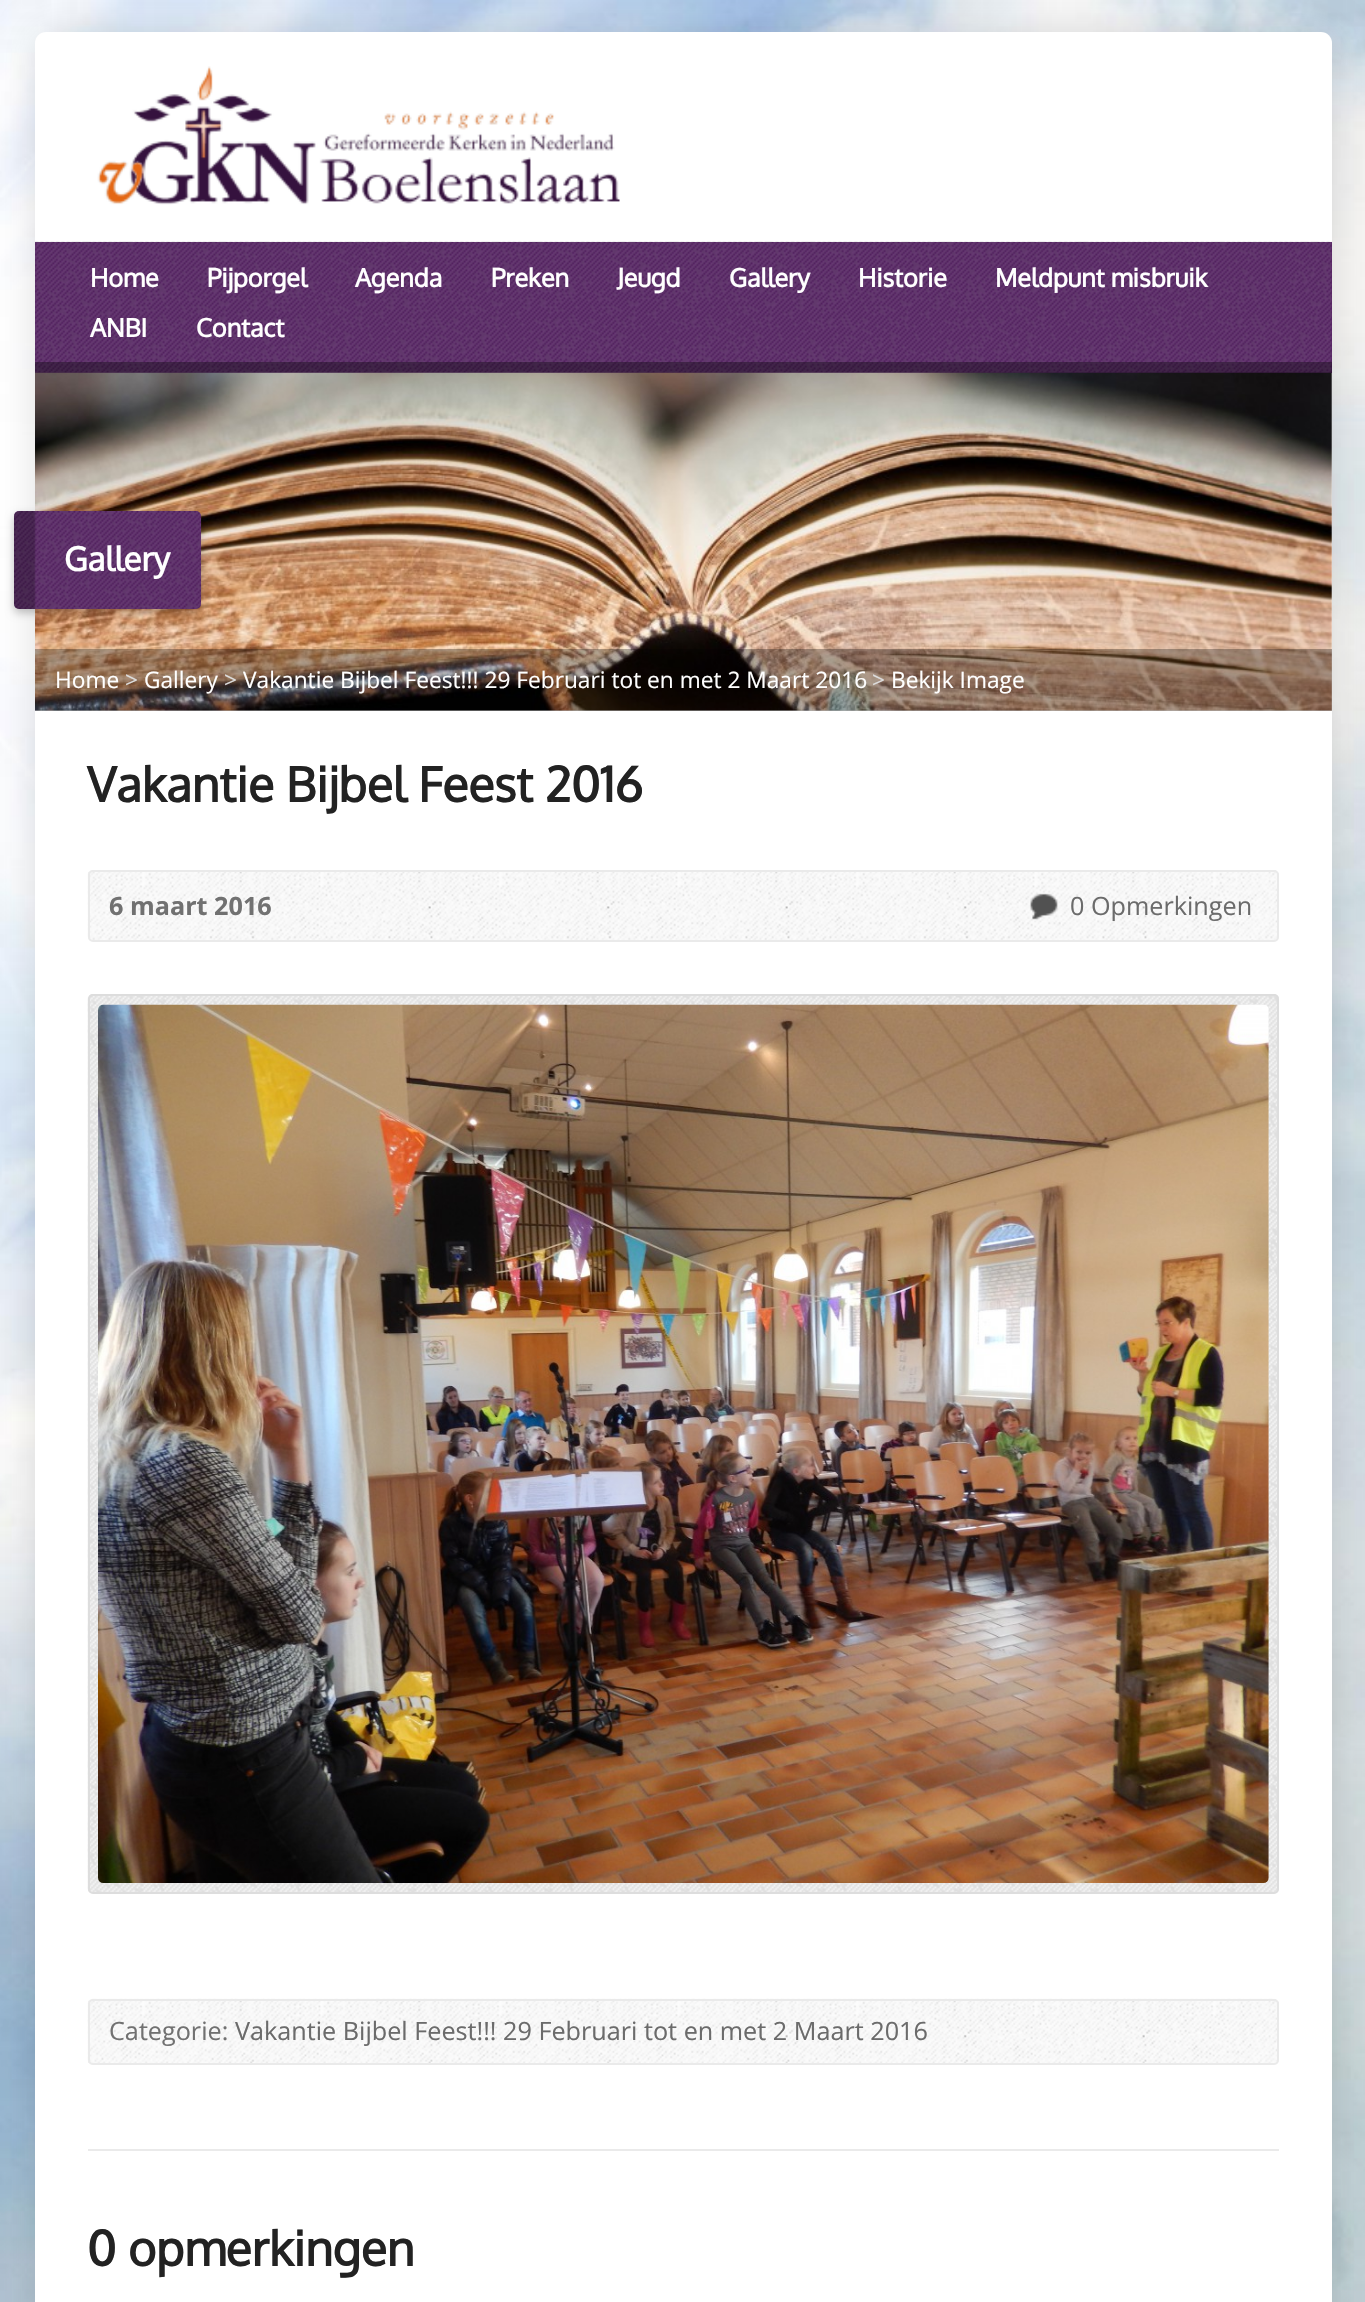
void draw(SkCanvas* canvas) {
	SkPaint paint;
	paint.setAntiAlias(true);
	canvas->clear(0xffffffff);
	canvas->drawImageRect(SkImages::DeferredFromEncodedData(SkData::MakeFromFileName("img1.png")), SkRect::MakeXYWH(0, 0, 1365, 2302), SkSamplingOptions());
	paint.setColor(0x1f000000);
	paint.setMaskFilter(SkMaskFilter::MakeBlur(kNormal_SkBlurStyle, 17.5));
	canvas->drawRoundRect(SkRect::MakeXYWH(35, 32, 1297, 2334), 11, 11, paint);
	paint.setMaskFilter(nullptr);
	paint.setColor(0xffffffff);
	canvas->drawRoundRect(SkRect::MakeXYWH(35, 32, 1297, 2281), 11, 11, paint);
	canvas->drawImageRect(SkImages::DeferredFromEncodedData(SkData::MakeFromFileName("img2.png")), SkRect::MakeXYWH(97, 66, 523, 139), SkSamplingOptions());
	paint.setColor(0xff531b62);
	canvas->drawRect(SkRect::MakeXYWH(35, 242, 1297, 131), paint);
	canvas->drawImageRect(SkImages::DeferredFromEncodedData(SkData::MakeFromFileName("img3.png")), SkRect::MakeXYWH(35, 241, 1297, 132), SkSamplingOptions());
	SkFont f1(fontMgr->matchFamilyStyle("Oxygen", SkFontStyle::Bold()), 25.2);
	f1.setSubpixel(true);
	paint.setColor(0xffffffff);
	canvas->drawString("Home", 90, 287, f1, paint);
	canvas->drawString("Pijporgel", 207, 287, f1, paint);
	canvas->drawString("Agenda", 355, 287, f1, paint);
	canvas->drawString("Preken", 491, 287, f1, paint);
	canvas->drawString("Jeugd", 617, 287, f1, paint);
	canvas->drawString("Gallery", 729, 287, f1, paint);
	canvas->drawString("Historie", 858, 287, f1, paint);
	canvas->drawString("Meldpunt misbruik", 995, 287, f1, paint);
	canvas->drawString("ANBI", 90, 337, f1, paint);
	canvas->drawString("Contact", 196, 337, f1, paint);
	paint.setColor(0x59000000);
	canvas->drawRect(SkRect::MakeXYWH(35, 362, 1297, 11), paint);
	canvas->drawImageRect(SkImages::DeferredFromEncodedData(SkData::MakeFromFileName("img4.png")), SkRect::MakeXYWH(35, 372, 1297, 339), SkSamplingOptions());
	paint.setColor(0x3d000000);
	paint.setMaskFilter(SkMaskFilter::MakeBlur(kNormal_SkBlurStyle, 4.5));
	canvas->drawRoundRect(SkRect::MakeXYWH(14, 515, 187, 98), 5, 5, paint);
	paint.setMaskFilter(nullptr);
	paint.setColor(0xff531b62);
	canvas->drawRoundRect(SkRect::MakeXYWH(14, 511, 187, 98), 5, 5, paint);
	canvas->drawImageRect(SkImages::DeferredFromEncodedData(SkData::MakeFromFileName("img5.png")), SkRect::MakeXYWH(14, 511, 188, 98), SkSamplingOptions());
	SkFont f2(fontMgr->matchFamilyStyle("Oxygen", SkFontStyle::Bold()), 33);
	f2.setSubpixel(true);
	paint.setColor(0xffffffff);
	canvas->drawString("Gallery", 64, 571, f2, paint);
	paint.setColor(0x4d000000);
	canvas->drawRect(SkRect::MakeXYWH(35, 649, 1297, 62), paint);
	SkFont f3(fontMgr->matchFamilyStyle("Open Sans", SkFontStyle::Normal()), 22.7);
	f3.setSubpixel(true);
	paint.setColor(0xffffffff);
	canvas->drawString("Home", 55, 688, f3, paint);
	paint.setColor(0xffdddddd);
	canvas->drawString(">", 125, 688, f3, paint);
	paint.setColor(0xffffffff);
	canvas->drawString("Gallery", 144, 688, f3, paint);
	paint.setColor(0xffdddddd);
	canvas->drawString(">", 224, 688, f3, paint);
	paint.setColor(0xffffffff);
	canvas->drawString("Vakantie Bijbel Feest!!! 29 Februari tot en met 2 Maart 2016", 243, 688, f3, paint);
	paint.setColor(0xffdddddd);
	canvas->drawString(">", 872, 688, f3, paint);
	paint.setColor(0xffffffff);
	canvas->drawString("Bekijk Image", 891, 688, f3, paint);
	SkFont f4(fontMgr->matchFamilyStyle("Oxygen", SkFontStyle::Bold()), 47.9);
	f4.setSubpixel(true);
	paint.setColor(0xff222222);
	canvas->drawString("Vakantie Bijbel Feest 2016", 87, 802, f4, paint);
	canvas->drawImageRect(SkImages::DeferredFromEncodedData(SkData::MakeFromFileName("img6.png")), SkRect::MakeXYWH(87, 870, 1192, 72), SkSamplingOptions());
	paint.setStroke(true);
	paint.setStrokeWidth(2);
	paint.setColor(0xffeaeaea);
	canvas->drawRoundRect(SkRect::MakeXYWH(89, 871, 1189, 70), 4, 4, paint);
	SkFont f5(fontMgr->matchFamilyStyle("Open Sans", SkFontStyle::Bold()), 25.2);
	f5.setSubpixel(true);
	paint.setStroke(false);
	paint.setColor(0xff717171);
	canvas->drawString("6 maart 2016", 109, 915, f5, paint);
	canvas->drawImageRect(SkImages::DeferredFromEncodedData(SkData::MakeFromFileName("img7.png")), SkRect::MakeXYWH(1030, 893, 28, 27), SkSamplingOptions());
	SkFont f6(fontMgr->matchFamilyStyle("Open Sans", SkFontStyle::Normal()), 25.2);
	f6.setSubpixel(true);
	paint.setColor(0xff6b6b6b);
	canvas->drawString("0 Opmerkingen", 1070, 915, f6, paint);
	canvas->drawImageRect(SkImages::DeferredFromEncodedData(SkData::MakeFromFileName("img8.png")), SkRect::MakeXYWH(87, 994, 1192, 900), SkSamplingOptions());
	paint.setStroke(true);
	paint.setColor(0xffdddddd);
	canvas->drawRoundRect(SkRect::MakeXYWH(89, 995, 1189, 898), 4, 4, paint);
	canvas->drawImageRect(SkImages::DeferredFromEncodedData(SkData::MakeFromFileName("img9.png")), SkRect::MakeXYWH(98, 1004, 1171, 879), SkSamplingOptions());
	canvas->drawImageRect(SkImages::DeferredFromEncodedData(SkData::MakeFromFileName("img10.png")), SkRect::MakeXYWH(87, 1998, 1192, 67), SkSamplingOptions());
	paint.setColor(0xffeaeaea);
	canvas->drawRoundRect(SkRect::MakeXYWH(89, 2000, 1189, 64), 4, 4, paint);
	paint.setStroke(false);
	paint.setColor(0xff717171);
	canvas->drawString("Categorie:", 109, 2040, f6, paint);
	paint.setColor(0xff6b6b6b);
	canvas->drawString("Vakantie Bijbel Feest!!! 29 Februari tot en met 2 Maart 2016", 235, 2040, f6, paint);
	paint.setColor(0xffeaeaea);
	canvas->drawRect(SkRect::MakeXYWH(88, 2149, 1191, 2), paint);
	paint.setColor(0xff222222);
	canvas->drawString("0 opmerkingen", 87, 2266, f4, paint);
}
